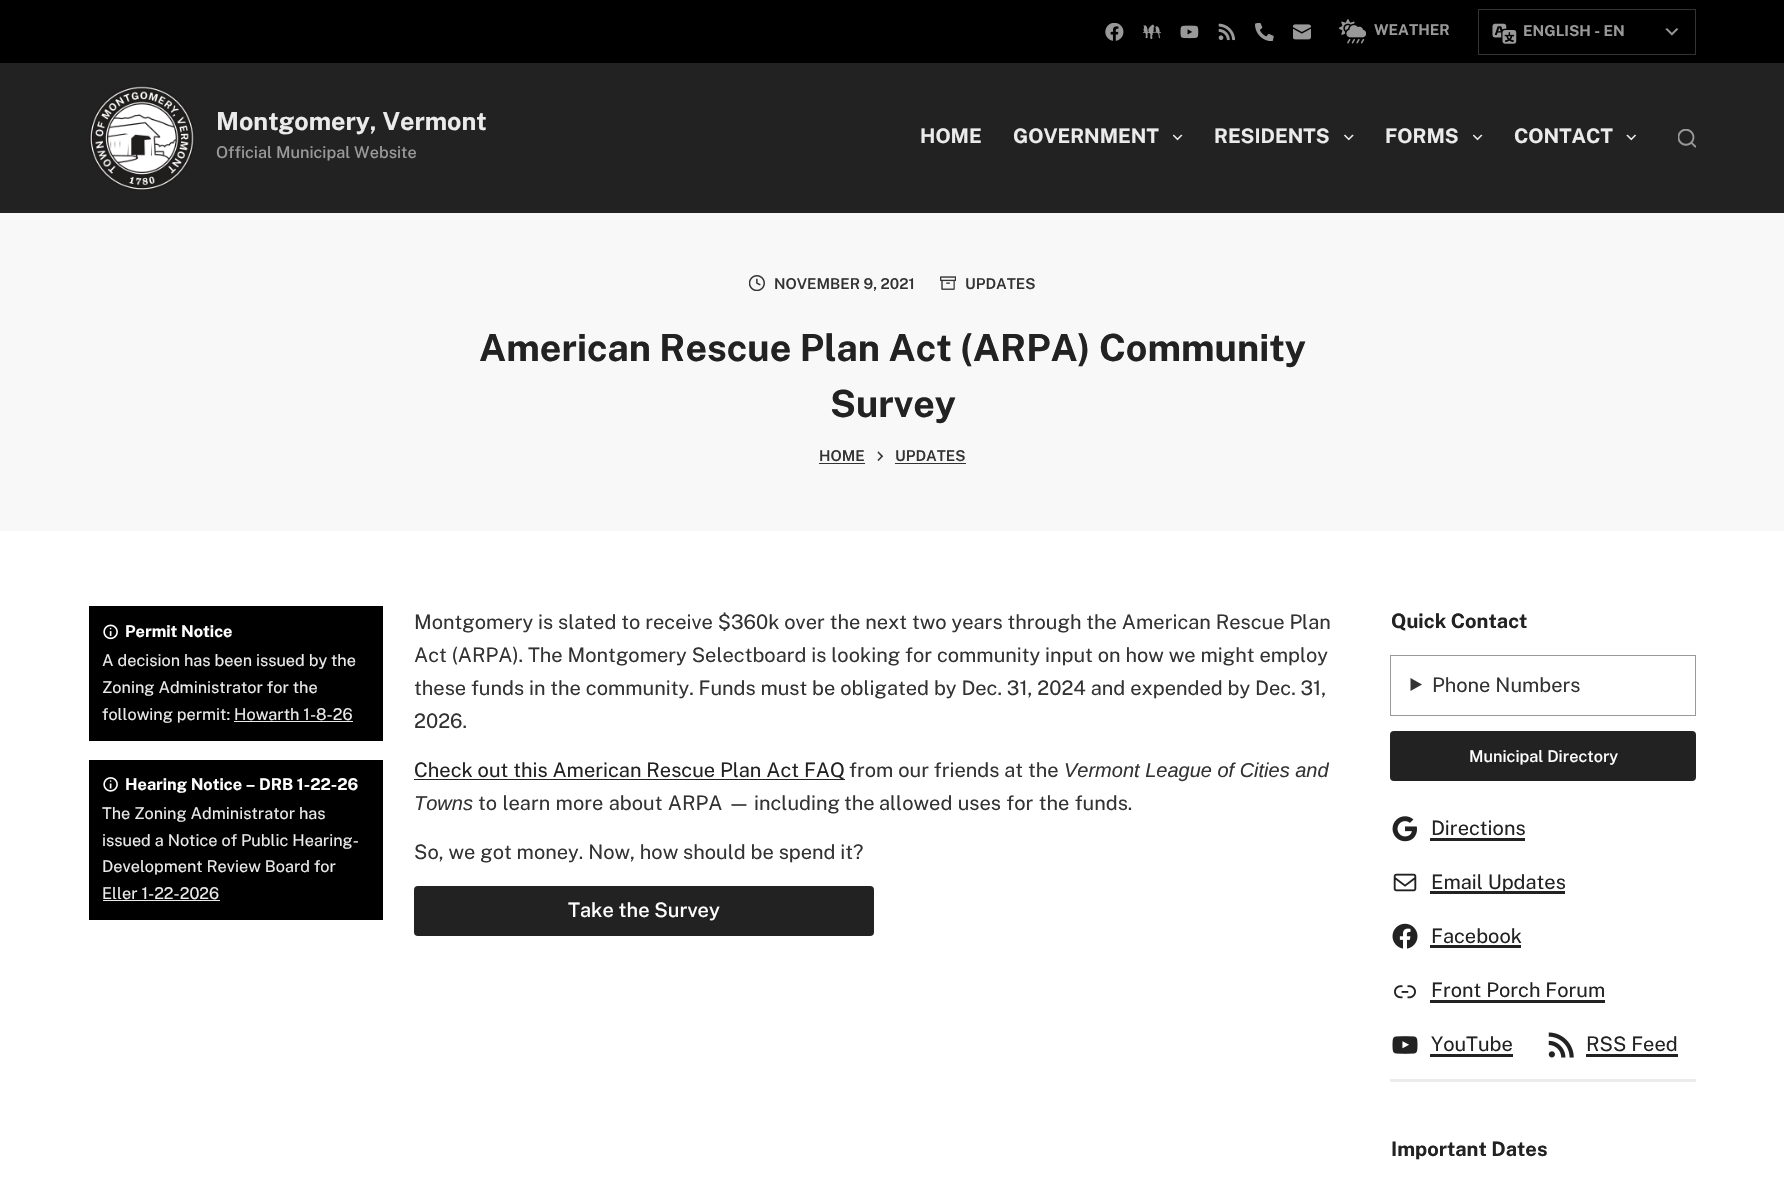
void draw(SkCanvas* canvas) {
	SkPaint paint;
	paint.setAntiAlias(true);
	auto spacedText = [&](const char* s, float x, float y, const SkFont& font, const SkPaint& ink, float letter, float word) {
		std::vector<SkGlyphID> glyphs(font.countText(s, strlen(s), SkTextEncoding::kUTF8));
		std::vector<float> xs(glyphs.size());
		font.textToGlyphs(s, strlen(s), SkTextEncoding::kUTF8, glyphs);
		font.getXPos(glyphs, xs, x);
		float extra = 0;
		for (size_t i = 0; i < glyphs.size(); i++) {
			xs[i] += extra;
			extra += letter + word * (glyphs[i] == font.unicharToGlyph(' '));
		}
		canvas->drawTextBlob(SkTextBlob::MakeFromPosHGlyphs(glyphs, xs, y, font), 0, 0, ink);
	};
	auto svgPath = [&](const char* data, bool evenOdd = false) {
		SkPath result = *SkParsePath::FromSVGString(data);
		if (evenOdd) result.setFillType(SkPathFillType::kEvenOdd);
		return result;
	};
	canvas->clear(0xffffffff);
	paint.setColor(0xff000000);
	canvas->drawRect(SkRect::MakeXYWH(0, 0, 1784, 63), paint);
	canvas->drawImageRect(SkImages::DeferredFromEncodedData(SkData::MakeFromFileName("img1.png")), SkRect::MakeXYWH(1105, 23, 19, 18), SkSamplingOptions());
	canvas->drawImageRect(SkImages::DeferredFromEncodedData(SkData::MakeFromFileName("img2.png")), SkRect::MakeXYWH(1143, 24, 18, 15), SkSamplingOptions());
	canvas->drawImageRect(SkImages::DeferredFromEncodedData(SkData::MakeFromFileName("img3.png")), SkRect::MakeXYWH(1180, 25, 19, 14), SkSamplingOptions());
	canvas->drawImageRect(SkImages::DeferredFromEncodedData(SkData::MakeFromFileName("img4.png")), SkRect::MakeXYWH(1218, 23, 18, 18), SkSamplingOptions());
	canvas->drawImageRect(SkImages::DeferredFromEncodedData(SkData::MakeFromFileName("img5.png")), SkRect::MakeXYWH(1255, 23, 19, 18), SkSamplingOptions());
	canvas->drawImageRect(SkImages::DeferredFromEncodedData(SkData::MakeFromFileName("img6.png")), SkRect::MakeXYWH(1293, 24, 18, 16), SkSamplingOptions());
	canvas->drawImageRect(SkImages::DeferredFromEncodedData(SkData::MakeFromFileName("img7.png")), SkRect::MakeXYWH(1339, 19, 27, 25), SkSamplingOptions());
	SkFont f1(fontMgr->matchFamilyStyle("Public Sans", SkFontStyle::Bold()), 15);
	f1.setSubpixel(true);
	paint.setColor(0xff999999);
	canvas->drawString("WEATHER", 1374, 35, f1, paint);
	paint.setStroke(true);
	paint.setStrokeWidth(1);
	paint.setColor(0xff333333);
	canvas->drawRect(SkRect::MakeXYWH(1478.5, 9.5, 217, 45), paint);
	canvas->drawImageRect(SkImages::DeferredFromEncodedData(SkData::MakeFromFileName("img8.png")), SkRect::MakeXYWH(1492, 23, 25, 21), SkSamplingOptions());
	paint.setStroke(false);
	paint.setColor(0xff999999);
	canvas->drawString("ENGLISH - EN", 1523, 36, f1, paint);
	canvas->drawImageRect(SkImages::DeferredFromEncodedData(SkData::MakeFromFileName("img9.png")), SkRect::MakeXYWH(1665, 28, 14, 8), SkSamplingOptions());
	paint.setColor(0xff222222);
	canvas->drawRect(SkRect::MakeXYWH(0, 63, 1784, 150), paint);
	canvas->drawImageRect(SkImages::DeferredFromEncodedData(SkData::MakeFromFileName("img10.png")), SkRect::MakeXYWH(89, 85, 106, 106), SkSamplingOptions());
	SkFont f2(fontMgr->matchFamilyStyle("Public Sans", SkFontStyle::Bold()), 25);
	f2.setSubpixel(true);
	paint.setColor(0xffebebeb);
	canvas->drawString("Montgomery, Vermont", 216, 130, f2, paint);
	SkFont f3(fontMgr->matchFamilyStyle("Public Sans", SkFontStyle(500, SkFontStyle::kNormal_Width, SkFontStyle::kUpright_Slant)), 16.25);
	f3.setSubpixel(true);
	paint.setColor(0xff999999);
	canvas->drawString("Official Municipal Website", 216, 158, f3, paint);
	SkFont f4(fontMgr->matchFamilyStyle("Public Sans", SkFontStyle::Bold()), 20);
	f4.setSubpixel(true);
	paint.setColor(0xffebebeb);
	canvas->drawString("HOME", 920, 143, f4, paint);
	canvas->drawString("GOVERNMENT", 1013, 143, f4, paint);
	canvas->drawImageRect(SkImages::DeferredFromEncodedData(SkData::MakeFromFileName("img11.png")), SkRect::MakeXYWH(1173, 134, 10, 7), SkSamplingOptions());
	canvas->drawString("RESIDENTS", 1214, 143, f4, paint);
	canvas->drawImageRect(SkImages::DeferredFromEncodedData(SkData::MakeFromFileName("img12.png")), SkRect::MakeXYWH(1344, 134, 10, 7), SkSamplingOptions());
	canvas->drawString("FORMS", 1385, 143, f4, paint);
	canvas->drawImageRect(SkImages::DeferredFromEncodedData(SkData::MakeFromFileName("img11.png")), SkRect::MakeXYWH(1473, 134, 10, 7), SkSamplingOptions());
	canvas->drawString("CONTACT", 1514, 143, f4, paint);
	canvas->drawImageRect(SkImages::DeferredFromEncodedData(SkData::MakeFromFileName("img13.png")), SkRect::MakeXYWH(1626, 134, 10, 7), SkSamplingOptions());
	canvas->drawImageRect(SkImages::DeferredFromEncodedData(SkData::MakeFromFileName("img14.png")), SkRect::MakeXYWH(1678, 129, 18, 19), SkSamplingOptions());
	paint.setColor(0xfff8f8f8);
	canvas->drawRect(SkRect::MakeXYWH(0, 213, 1784, 318), paint);
	canvas->drawImageRect(SkImages::DeferredFromEncodedData(SkData::MakeFromFileName("img15.png")), SkRect::MakeXYWH(749, 275, 16, 16), SkSamplingOptions());
	SkFont f5(fontMgr->matchFamilyStyle("Public Sans", SkFontStyle(600, SkFontStyle::kNormal_Width, SkFontStyle::kUpright_Slant)), 15);
	f5.setSubpixel(true);
	paint.setColor(0xff333333);
	canvas->drawString("NOVEMBER 9, 2021", 774, 289, f5, paint);
	canvas->drawImageRect(SkImages::DeferredFromEncodedData(SkData::MakeFromFileName("img16.png")), SkRect::MakeXYWH(940, 276, 16, 14), SkSamplingOptions());
	canvas->drawString("UPDATES", 965, 289, f5, paint);
	SkFont f6(fontMgr->matchFamilyStyle("Public Sans", SkFontStyle::Bold()), 37.5);
	f6.setSubpixel(true);
	paint.setColor(0xff222222);
	canvas->drawString("American Rescue Plan Act (ARPA) Community", 479, 361, f6, paint);
	canvas->drawString("Survey", 830, 417, f6, paint);
	paint.setColor(0xff333333);
	canvas->drawString("HOME", 819, 461, f5, paint);
	canvas->drawRect(SkRect::MakeXYWH(819, 463, 46, 1), paint);
	canvas->drawImageRect(SkImages::DeferredFromEncodedData(SkData::MakeFromFileName("img17.png")), SkRect::MakeXYWH(877, 451, 7, 10), SkSamplingOptions());
	canvas->drawString("UPDATES", 895, 461, f5, paint);
	canvas->drawRect(SkRect::MakeXYWH(895, 463, 71, 1), paint);
	paint.setColor(0xff000000);
	canvas->drawRect(SkRect::MakeXYWH(89, 606, 294, 135), paint);
	canvas->drawImageRect(SkImages::DeferredFromEncodedData(SkData::MakeFromFileName("img18.png")), SkRect::MakeXYWH(103, 624, 15, 16), SkSamplingOptions());
	SkFont f7(fontMgr->matchFamilyStyle("Public Sans", SkFontStyle::Bold()), 16.25);
	f7.setSubpixel(true);
	paint.setColor(0xffffffff);
	canvas->drawString("Permit Notice", 125, 637, f7, paint);
	SkFont f8(fontMgr->matchFamilyStyle("Public Sans", SkFontStyle::Normal()), 16.25);
	f8.setSubpixel(true);
	paint.setColor(0xffebebeb);
	canvas->drawString("A decision has been issued by the", 102, 666, f8, paint);
	canvas->drawString("Zoning Administrator for the", 102, 693, f8, paint);
	canvas->drawString("following permit: Howarth 1-8-26", 102, 720, f8, paint);
	canvas->drawRect(SkRect::MakeXYWH(234, 721, 119, 1), paint);
	paint.setColor(0xff000000);
	canvas->drawRect(SkRect::MakeXYWH(89, 760, 294, 160), paint);
	canvas->drawImageRect(SkImages::DeferredFromEncodedData(SkData::MakeFromFileName("img19.png")), SkRect::MakeXYWH(103, 777, 15, 15), SkSamplingOptions());
	paint.setColor(0xffffffff);
	canvas->drawString("Hearing Notice – DRB 1-22-26", 125, 790, f7, paint);
	paint.setColor(0xffebebeb);
	canvas->drawString("The Zoning Administrator has", 102, 819, f8, paint);
	canvas->drawString("issued a Notice of Public Hearing-", 102, 846, f8, paint);
	canvas->drawString("Development Review Board for", 102, 872, f8, paint);
	canvas->drawString("Eller 1-22-2026", 102, 899, f8, paint);
	canvas->drawRect(SkRect::MakeXYWH(103, 900, 117, 1), paint);
	SkFont f9(fontMgr->matchFamilyStyle("Public Sans", SkFontStyle::Normal()), 20);
	f9.setSubpixel(true);
	paint.setColor(0xff333333);
	canvas->drawString("Montgomery is slated to receive $360k over the next two years through the American Rescue Plan", 414, 629, f9, paint);
	canvas->drawString("Act (ARPA). The Montgomery Selectboard is looking for community input on how we might employ", 414, 662, f9, paint);
	canvas->drawString("these funds in the community. Funds must be obligated by Dec. 31, 2024 and expended by Dec. 31,", 414, 695, f9, paint);
	canvas->drawString("2026.", 414, 728, f9, paint);
	paint.setColor(0xff222222);
	canvas->drawRect(SkRect::MakeXYWH(414, 779, 431, 1), paint);
	canvas->drawString("Check out this American Rescue Plan Act FAQ", 414, 777, f9, paint);
	paint.setColor(0xff333333);
	canvas->drawString("from our friends at the", 849, 777, f9, paint);
	SkFont f10(fontMgr->matchFamilyStyle("Liberation Sans", SkFontStyle::Italic()), 20);
	f10.setSubpixel(true);
	canvas->drawString("Vermont League of Cities and", 1064, 777, f10, paint);
	canvas->drawString("Towns", 414, 810, f10, paint);
	spacedText("to learn more about ARPA —", 478, 810, f9, paint, 0, 0.5);
	spacedText("including", 754, 810, f9, paint, 0, 0.5);
	spacedText("the", 844, 810, f9, paint, 0, 0.5);
	spacedText("allowed uses for the funds.", 879, 810, f9, paint, 0, 0.5);
	canvas->drawString("So, we got money. Now, how should be spend it?", 414, 859, f9, paint);
	paint.setColor(0xff222222);
	canvas->drawRoundRect(SkRect::MakeXYWH(414, 886, 460, 50), 4, 4, paint);
	SkFont f11(fontMgr->matchFamilyStyle("Public Sans", SkFontStyle(500, SkFontStyle::kNormal_Width, SkFontStyle::kUpright_Slant)), 20);
	f11.setSubpixel(true);
	paint.setColor(0xffffffff);
	canvas->drawString("Take the Survey", 568, 917, f11, paint);
	paint.setColor(0xff222222);
	canvas->drawString("Quick Contact", 1391, 628, f4, paint);
	paint.setStroke(true);
	paint.setColor(0xff999999);
	canvas->drawRect(SkRect::MakeXYWH(1390.5, 655.5, 305, 60), paint);
	paint.setStroke(false);
	paint.setColor(0xff333333);
	canvas->drawPath(svgPath("M1410.5 678L1422 684.5L1410.5 691Z"), paint);
	canvas->drawString("Phone Numbers", 1432, 692, f9, paint);
	paint.setColor(0xff222222);
	canvas->drawRoundRect(SkRect::MakeXYWH(1390, 731, 306, 50), 4, 4, paint);
	paint.setColor(0xffffffff);
	canvas->drawString("Municipal Directory", 1469, 762, f3, paint);
	canvas->drawImageRect(SkImages::DeferredFromEncodedData(SkData::MakeFromFileName("img20.png")), SkRect::MakeXYWH(1392, 816, 25, 26), SkSamplingOptions());
	paint.setColor(0xff222222);
	canvas->drawString("Directions", 1431, 835, f9, paint);
	canvas->drawRect(SkRect::MakeXYWH(1430, 838, 95, 3), paint);
	canvas->drawImageRect(SkImages::DeferredFromEncodedData(SkData::MakeFromFileName("img21.png")), SkRect::MakeXYWH(1393, 873, 24, 19), SkSamplingOptions());
	canvas->drawRect(SkRect::MakeXYWH(1430, 891, 135, 3), paint);
	canvas->drawString("Email Updates", 1431, 889, f9, paint);
	canvas->drawImageRect(SkImages::DeferredFromEncodedData(SkData::MakeFromFileName("img22.png")), SkRect::MakeXYWH(1392, 923, 26, 26), SkSamplingOptions());
	canvas->drawString("Facebook", 1431, 943, f9, paint);
	canvas->drawRect(SkRect::MakeXYWH(1430, 945, 91, 3), paint);
	canvas->drawImageRect(SkImages::DeferredFromEncodedData(SkData::MakeFromFileName("img23.png")), SkRect::MakeXYWH(1394, 985, 22, 14), SkSamplingOptions());
	canvas->drawString("Front Porch Forum", 1431, 997, f9, paint);
	canvas->drawRect(SkRect::MakeXYWH(1430, 1000, 175, 3), paint);
	canvas->drawImageRect(SkImages::DeferredFromEncodedData(SkData::MakeFromFileName("img24.png")), SkRect::MakeXYWH(1392, 1036, 26, 18), SkSamplingOptions());
	canvas->drawString("YouTube", 1431, 1051, f9, paint);
	canvas->drawRect(SkRect::MakeXYWH(1430, 1054, 83, 3), paint);
	canvas->drawImageRect(SkImages::DeferredFromEncodedData(SkData::MakeFromFileName("img25.png")), SkRect::MakeXYWH(1548, 1032, 26, 26), SkSamplingOptions());
	canvas->drawString("RSS Feed", 1586, 1051, f9, paint);
	canvas->drawRect(SkRect::MakeXYWH(1586, 1054, 92, 3), paint);
	paint.setColor(0xffebebeb);
	canvas->drawRect(SkRect::MakeXYWH(1390, 1079, 306, 3), paint);
	paint.setColor(0xff222222);
	canvas->drawString("Important Dates", 1391, 1156, f4, paint);
}
